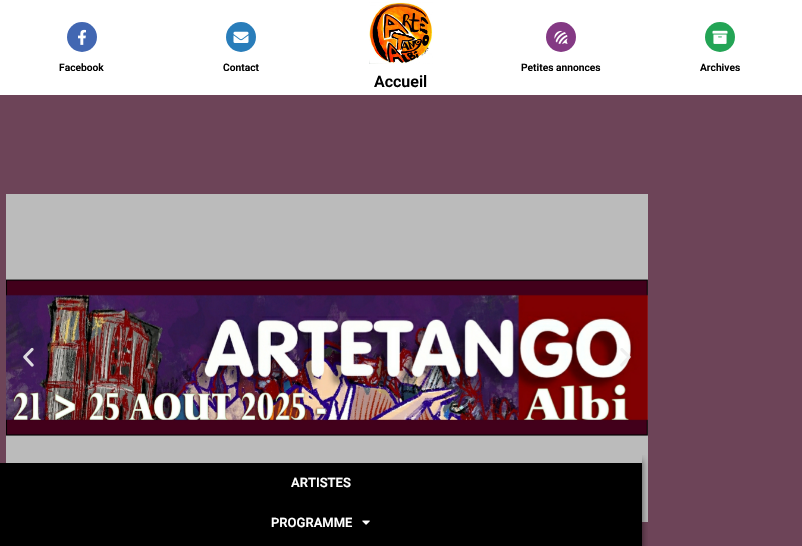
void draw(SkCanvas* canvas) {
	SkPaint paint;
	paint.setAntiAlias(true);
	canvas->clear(0xffffffff);
	paint.setColor(0xff4267b2);
	canvas->drawCircle(82, 37, 15, paint);
	canvas->drawImageRect(SkImages::DeferredFromEncodedData(SkData::MakeFromFileName("img1.png")), SkRect::MakeXYWH(78, 29, 8, 16), SkSamplingOptions());
	SkFont f1(fontMgr->matchFamilyStyle("Roboto", SkFontStyle(600, SkFontStyle::kNormal_Width, SkFontStyle::kUpright_Slant)), 10.25);
	f1.setSubpixel(true);
	paint.setColor(0xff000000);
	canvas->drawString("Facebook", 59, 71, f1, paint);
	paint.setColor(0xff297dba);
	canvas->drawCircle(241, 37, 15, paint);
	canvas->drawImageRect(SkImages::DeferredFromEncodedData(SkData::MakeFromFileName("img2.png")), SkRect::MakeXYWH(233, 31, 16, 12), SkSamplingOptions());
	paint.setColor(0xff000000);
	canvas->drawString("Contact", 223, 71, f1, paint);
	paint.setColor(0xff843984);
	canvas->drawCircle(561, 37, 15, paint);
	canvas->drawImageRect(SkImages::DeferredFromEncodedData(SkData::MakeFromFileName("img3.png")), SkRect::MakeXYWH(554, 30, 14, 14), SkSamplingOptions());
	paint.setColor(0xff000000);
	canvas->drawString("Petites annonces", 521, 71, f1, paint);
	paint.setColor(0xff23a455);
	canvas->drawCircle(720, 37, 15, paint);
	canvas->drawImageRect(SkImages::DeferredFromEncodedData(SkData::MakeFromFileName("img4.png")), SkRect::MakeXYWH(712, 30, 16, 14), SkSamplingOptions());
	paint.setColor(0xff000000);
	canvas->drawString("Archives", 700, 71, f1, paint);
	canvas->drawImageRect(SkImages::DeferredFromEncodedData(SkData::MakeFromFileName("img5.png")), SkRect::MakeXYWH(369, 2, 64, 62), SkSamplingOptions());
	SkFont f2(fontMgr->matchFamilyStyle("Roboto", SkFontStyle(600, SkFontStyle::kNormal_Width, SkFontStyle::kUpright_Slant)), 16);
	f2.setSubpixel(true);
	canvas->drawString("Accueil", 374, 87, f2, paint);
	paint.setColor(0xff6d4458);
	canvas->drawRect(SkRect::MakeXYWH(0, 95, 802, 451), paint);
	paint.setColor(0xffbbbbbb);
	canvas->drawRect(SkRect::MakeXYWH(6, 194, 642, 328), paint);
	canvas->drawImageRect(SkImages::DeferredFromEncodedData(SkData::MakeFromFileName("img6.png")), SkRect::MakeXYWH(6, 279, 642, 157), SkSamplingOptions());
	canvas->drawImageRect(SkImages::DeferredFromEncodedData(SkData::MakeFromFileName("img7.png")), SkRect::MakeXYWH(23, 347, 11, 20), SkSamplingOptions());
	canvas->drawImageRect(SkImages::DeferredFromEncodedData(SkData::MakeFromFileName("img8.png")), SkRect::MakeXYWH(620, 348, 11, 19), SkSamplingOptions());
	canvas->save();
	canvas->clipRect(SkRect::MakeXYWH(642, 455, 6, 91));
	paint.setColor(0x96000000);
	paint.setMaskFilter(SkMaskFilter::MakeBlur(kNormal_SkBlurStyle, 3.5));
	canvas->drawRect(SkRect::MakeXYWH(0, 460, 642, 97), paint);
	paint.setMaskFilter(nullptr);
	canvas->restore();
	paint.setColor(0xff000000);
	canvas->drawRect(SkRect::MakeXYWH(0, 463, 642, 83), paint);
	SkFont f3(fontMgr->matchFamilyStyle("Roboto", SkFontStyle(600, SkFontStyle::kNormal_Width, SkFontStyle::kUpright_Slant)), 13);
	f3.setSubpixel(true);
	paint.setColor(0xffffffff);
	canvas->drawString("ARTISTES", 291, 487, f3, paint);
	canvas->drawString("PROGRAMME", 271, 527, f3, paint);
	canvas->drawImageRect(SkImages::DeferredFromEncodedData(SkData::MakeFromFileName("img9.png")), SkRect::MakeXYWH(362, 520, 8, 5), SkSamplingOptions());
}
